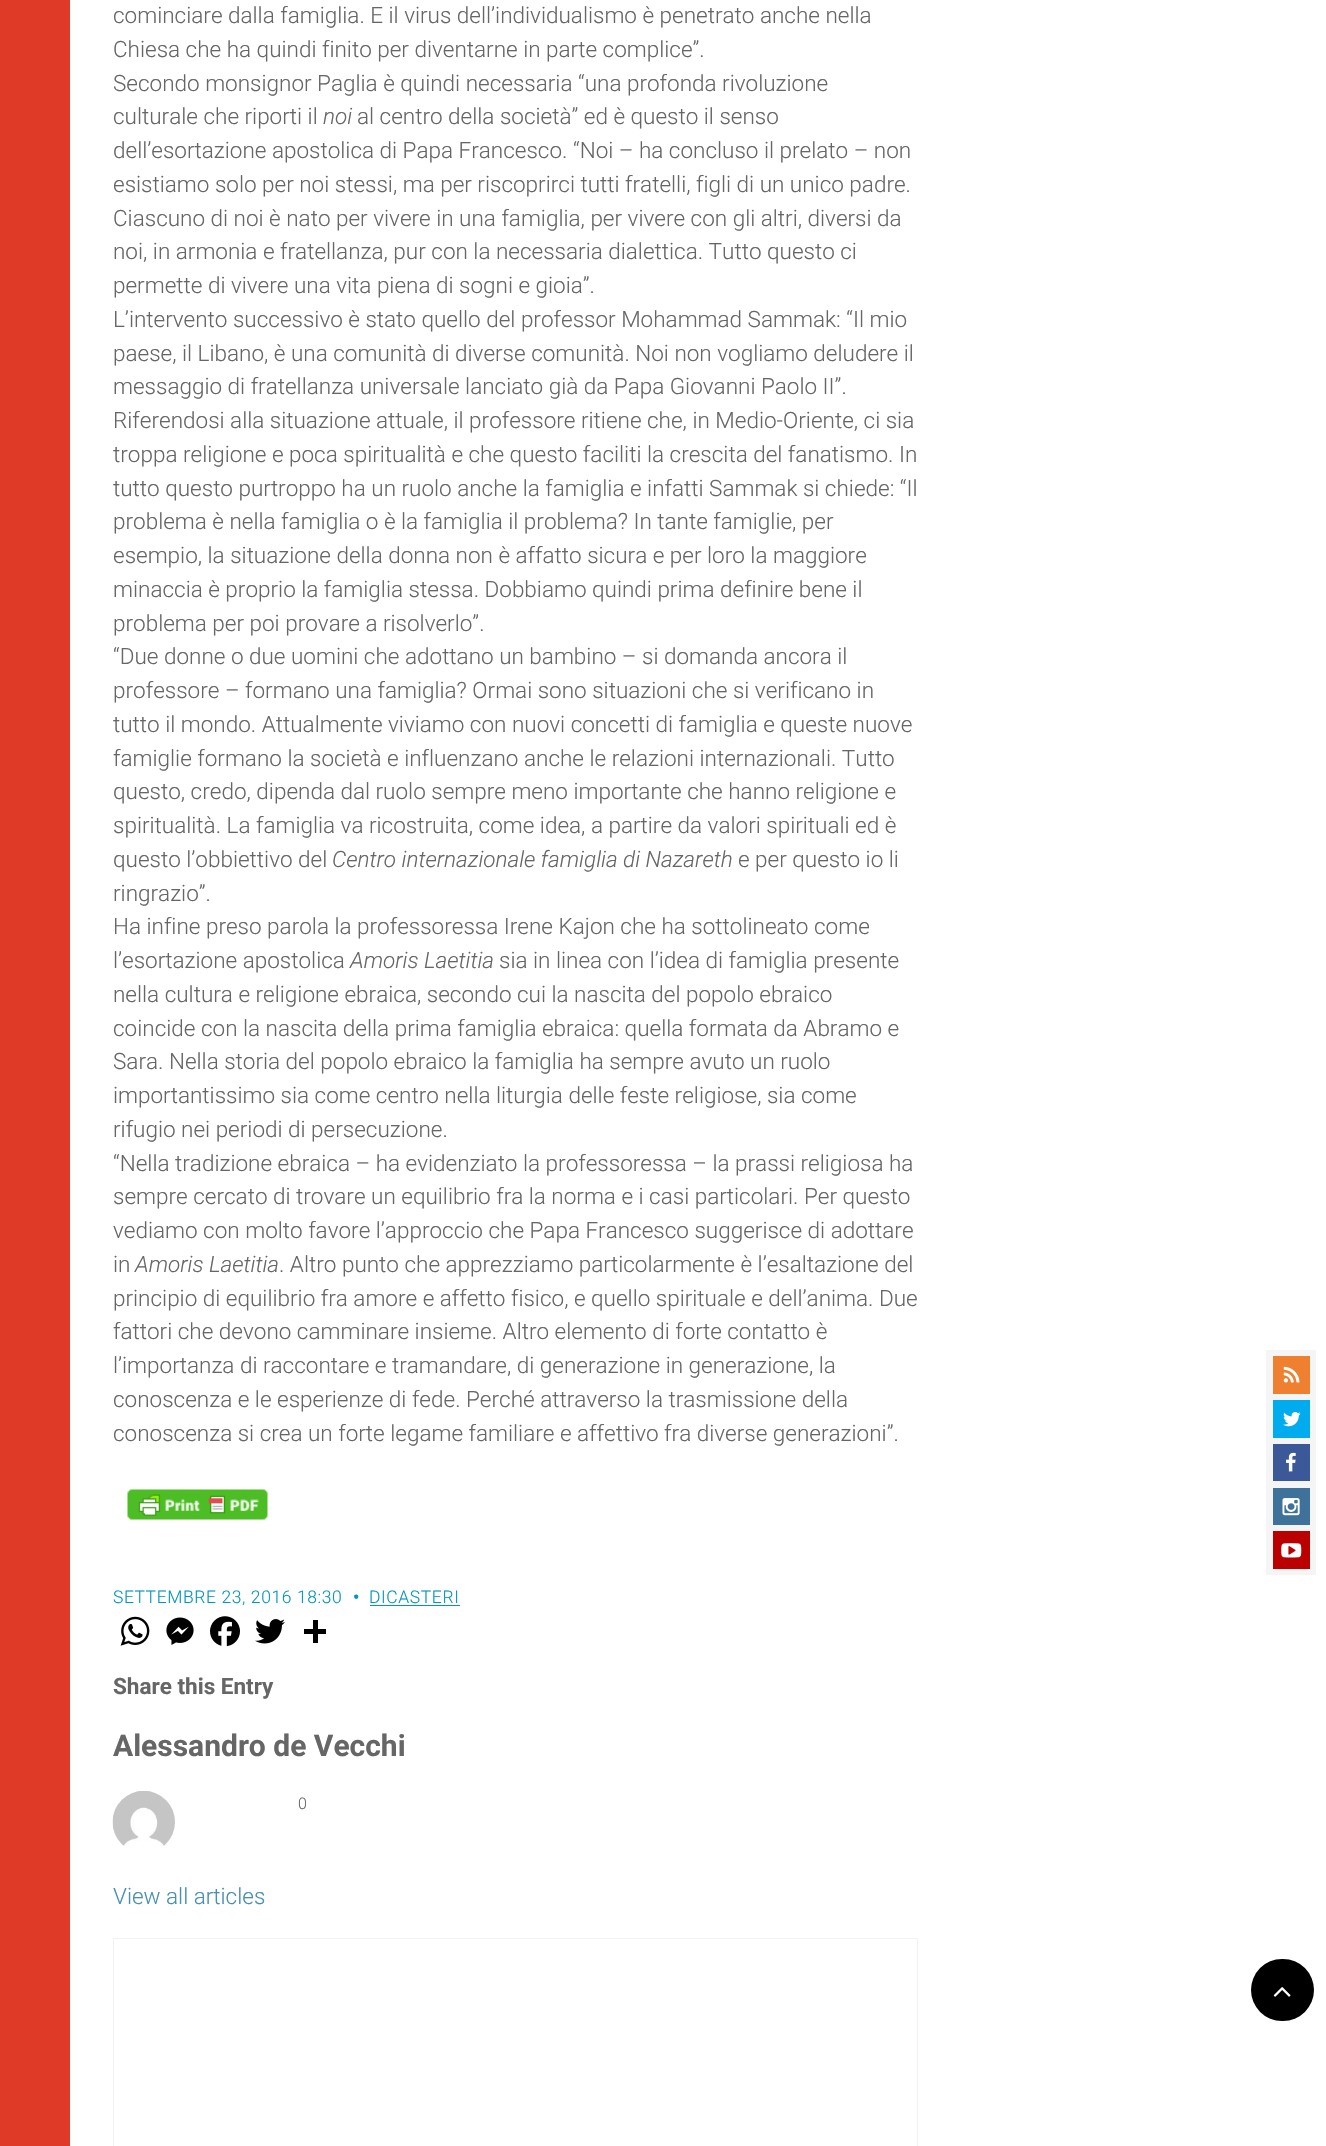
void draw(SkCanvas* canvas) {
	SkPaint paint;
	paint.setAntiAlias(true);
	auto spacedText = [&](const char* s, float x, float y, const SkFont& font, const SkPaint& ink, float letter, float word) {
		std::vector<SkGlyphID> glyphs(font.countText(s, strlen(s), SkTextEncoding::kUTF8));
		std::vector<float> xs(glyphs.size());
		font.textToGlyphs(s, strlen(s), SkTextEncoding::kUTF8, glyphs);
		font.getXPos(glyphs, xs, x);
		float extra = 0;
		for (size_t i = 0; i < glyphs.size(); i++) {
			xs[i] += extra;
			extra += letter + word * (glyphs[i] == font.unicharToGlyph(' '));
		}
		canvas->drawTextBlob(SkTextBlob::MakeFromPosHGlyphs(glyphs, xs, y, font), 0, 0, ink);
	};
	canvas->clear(0xffffffff);
	paint.setColor(0xffdf3a28);
	canvas->drawRect(SkRect::MakeXYWH(0, 0, 70, 2146), paint);
	SkFont f1(fontMgr->matchFamilyStyle("Roboto", SkFontStyle(300, SkFontStyle::kNormal_Width, SkFontStyle::kUpright_Slant)), 22.5);
	f1.setSubpixel(true);
	paint.setColor(0xff666666);
	canvas->drawString("cominciare dalla famiglia. E il virus dell’individualismo è penetrato anche nella", 113, 23, f1, paint);
	canvas->drawString("Chiesa che ha quindi finito per diventarne in parte complice”.", 113, 57, f1, paint);
	canvas->drawString("Secondo monsignor Paglia è quindi necessaria “una profonda rivoluzione", 113, 91, f1, paint);
	canvas->drawString("culturale che riporti il", 113, 124, f1, paint);
	SkFont f2(fontMgr->matchFamilyStyle("Roboto", SkFontStyle(300, SkFontStyle::kNormal_Width, SkFontStyle::kItalic_Slant)), 22.5);
	f2.setSubpixel(true);
	canvas->drawString("noi", 323, 124, f2, paint);
	canvas->drawString("al centro della società” ed è questo il senso", 357, 124, f1, paint);
	canvas->drawString("dell’esortazione apostolica di Papa Francesco. “Noi – ha concluso il prelato – non", 113, 158, f1, paint);
	canvas->drawString("esistiamo solo per noi stessi, ma per riscoprirci tutti fratelli, figli di un unico padre.", 113, 192, f1, paint);
	canvas->drawString("Ciascuno di noi è nato per vivere in una famiglia, per vivere con gli altri, diversi da", 113, 226, f1, paint);
	canvas->drawString("noi, in armonia e fratellanza, pur con la necessaria dialettica. Tutto questo ci", 113, 259, f1, paint);
	canvas->drawString("permette di vivere una vita piena di sogni e gioia”.", 113, 293, f1, paint);
	canvas->drawString("L’intervento successivo è stato quello del professor Mohammad Sammak: “Il mio", 113, 327, f1, paint);
	canvas->drawString("paese, il Libano, è una comunità di diverse comunità. Noi non vogliamo deludere il", 113, 361, f1, paint);
	canvas->drawString("messaggio di fratellanza universale lanciato già da Papa Giovanni Paolo II”.", 113, 394, f1, paint);
	canvas->drawString("Riferendosi alla situazione attuale, il professore ritiene che, in Medio-Oriente, ci sia", 113, 428, f1, paint);
	canvas->drawString("troppa religione e poca spiritualità e che questo faciliti la crescita del fanatismo. In", 113, 462, f1, paint);
	canvas->drawString("tutto questo purtroppo ha un ruolo anche la famiglia e infatti Sammak si chiede: “Il", 113, 496, f1, paint);
	canvas->drawString("problema è nella famiglia o è la famiglia il problema? In tante famiglie, per", 113, 529, f1, paint);
	canvas->drawString("esempio, la situazione della donna non è affatto sicura e per loro la maggiore", 113, 563, f1, paint);
	canvas->drawString("minaccia è proprio la famiglia stessa. Dobbiamo quindi prima definire bene il", 113, 597, f1, paint);
	canvas->drawString("problema per poi provare a risolverlo”.", 113, 631, f1, paint);
	canvas->drawString("“Due donne o due uomini che adottano un bambino – si domanda ancora il", 113, 664, f1, paint);
	canvas->drawString("professore – formano una famiglia? Ormai sono situazioni che si verificano in", 113, 698, f1, paint);
	canvas->drawString("tutto il mondo. Attualmente viviamo con nuovi concetti di famiglia e queste nuove", 113, 732, f1, paint);
	canvas->drawString("famiglie formano la società e influenzano anche le relazioni internazionali. Tutto", 113, 766, f1, paint);
	canvas->drawString("questo, credo, dipenda dal ruolo sempre meno importante che hanno religione e", 113, 799, f1, paint);
	canvas->drawString("spiritualità. La famiglia va ricostruita, come idea, a partire da valori spirituali ed è", 113, 833, f1, paint);
	canvas->drawString("questo l’obbiettivo del", 113, 867, f1, paint);
	canvas->drawString("Centro internazionale famiglia di Nazareth", 332, 867, f2, paint);
	canvas->drawString("e per questo io li", 738, 867, f1, paint);
	canvas->drawString("ringrazio”.", 113, 901, f1, paint);
	canvas->drawString("Ha infine preso parola la professoressa Irene Kajon che ha sottolineato come", 113, 934, f1, paint);
	canvas->drawString("l’esortazione apostolica", 113, 968, f1, paint);
	canvas->drawString("Amoris Laetitia", 350, 968, f2, paint);
	canvas->drawString("sia in linea con l’idea di famiglia presente", 499, 968, f1, paint);
	canvas->drawString("nella cultura e religione ebraica, secondo cui la nascita del popolo ebraico", 113, 1002, f1, paint);
	canvas->drawString("coincide con la nascita della prima famiglia ebraica: quella formata da Abramo e", 113, 1036, f1, paint);
	canvas->drawString("Sara. Nella storia del popolo ebraico la famiglia ha sempre avuto un ruolo", 113, 1069, f1, paint);
	canvas->drawString("importantissimo sia come centro nella liturgia delle feste religiose, sia come", 113, 1103, f1, paint);
	canvas->drawString("rifugio nei periodi di persecuzione.", 113, 1137, f1, paint);
	canvas->drawString("“Nella tradizione ebraica – ha evidenziato la professoressa – la prassi religiosa ha", 113, 1171, f1, paint);
	canvas->drawString("sempre cercato di trovare un equilibrio fra la norma e i casi particolari. Per questo", 113, 1204, f1, paint);
	canvas->drawString("vediamo con molto favore l’approccio che Papa Francesco suggerisce di adottare", 113, 1238, f1, paint);
	canvas->drawString("in", 113, 1272, f1, paint);
	canvas->drawString("Amoris Laetitia", 135, 1272, f2, paint);
	canvas->drawString(". Altro punto che apprezziamo particolarmente è l’esaltazione del", 279, 1272, f1, paint);
	canvas->drawString("principio di equilibrio fra amore e affetto fisico, e quello spirituale e dell’anima. Due", 113, 1306, f1, paint);
	canvas->drawString("fattori che devono camminare insieme. Altro elemento di forte contatto è", 113, 1339, f1, paint);
	canvas->drawString("l’importanza di raccontare e tramandare, di generazione in generazione, la", 113, 1373, f1, paint);
	canvas->drawString("conoscenza e le esperienze di fede. Perché attraverso la trasmissione della", 113, 1407, f1, paint);
	canvas->drawString("conoscenza si crea un forte legame familiare e affettivo fra diverse generazioni”.", 113, 1441, f1, paint);
	canvas->drawImageRect(SkImages::DeferredFromEncodedData(SkData::MakeFromFileName("img1.png")), SkRect::MakeXYWH(127, 1489, 141, 31), SkSamplingOptions());
	SkFont f3(fontMgr->matchFamilyStyle("Roboto", SkFontStyle(300, SkFontStyle::kNormal_Width, SkFontStyle::kUpright_Slant)), 17.5);
	f3.setSubpixel(true);
	paint.setColor(0xff0296be);
	spacedText("SETTEMBRE 23, 2016 18:30", 113, 1603, f3, paint, 0.6, 0);
	SkFont f4(fontMgr->matchFamilyStyle("Roboto", SkFontStyle::Bold()), 17.5);
	f4.setSubpixel(true);
	spacedText("•", 353, 1603, f4, paint, 0.6, 0);
	spacedText("DICASTERI", 369, 1603, f3, paint, 0.6, 0);
	canvas->drawRect(SkRect::MakeXYWH(370, 1605, 90, 1), paint);
	canvas->drawImageRect(SkImages::DeferredFromEncodedData(SkData::MakeFromFileName("img2.png")), SkRect::MakeXYWH(120, 1616, 30, 30), SkSamplingOptions());
	canvas->drawImageRect(SkImages::DeferredFromEncodedData(SkData::MakeFromFileName("img3.png")), SkRect::MakeXYWH(166, 1617, 28, 28), SkSamplingOptions());
	canvas->drawImageRect(SkImages::DeferredFromEncodedData(SkData::MakeFromFileName("img4.png")), SkRect::MakeXYWH(210, 1616, 30, 31), SkSamplingOptions());
	canvas->drawImageRect(SkImages::DeferredFromEncodedData(SkData::MakeFromFileName("img5.png")), SkRect::MakeXYWH(255, 1619, 30, 25), SkSamplingOptions());
	paint.setColor(0xff000000);
	canvas->drawRect(SkRect::MakeXYWH(313, 1620, 5, 23), paint);
	canvas->drawRect(SkRect::MakeXYWH(304, 1629, 22, 5), paint);
	SkFont f5(fontMgr->matchFamilyStyle("Roboto", SkFontStyle::Bold()), 22.5);
	f5.setSubpixel(true);
	paint.setColor(0xff666666);
	canvas->drawString("Share this Entry", 113, 1694, f5, paint);
	SkFont f6(fontMgr->matchFamilyStyle("Roboto", SkFontStyle::Bold()), 30);
	f6.setSubpixel(true);
	canvas->drawString("Alessandro de Vecchi", 113, 1756, f6, paint);
	SkFont f7(fontMgr->matchFamilyStyle("Roboto", SkFontStyle(300, SkFontStyle::kNormal_Width, SkFontStyle::kUpright_Slant)), 16);
	f7.setSubpixel(true);
	canvas->drawString("0", 298, 1809, f7, paint);
	canvas->drawImageRect(SkImages::DeferredFromEncodedData(SkData::MakeFromFileName("img6.png")), SkRect::MakeXYWH(112, 1791, 63, 55), SkSamplingOptions());
	paint.setColor(0xff478fb3);
	canvas->drawString("View all articles", 113, 1904, f1, paint);
	paint.setStroke(true);
	paint.setStrokeWidth(1);
	paint.setColor(0xfff2f2f2);
	canvas->drawRect(SkRect::MakeXYWH(113.5, 1938.5, 804, 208), paint);
	paint.setStroke(false);
	paint.setColor(0xfff5f5f5);
	canvas->drawRect(SkRect::MakeXYWH(1266, 1350, 50, 225), paint);
	paint.setColor(0xffee802f);
	canvas->drawRect(SkRect::MakeXYWH(1273, 1356, 37, 38), paint);
	canvas->drawImageRect(SkImages::DeferredFromEncodedData(SkData::MakeFromFileName("img7.png")), SkRect::MakeXYWH(1283, 1366, 17, 17), SkSamplingOptions());
	paint.setColor(0xff00aced);
	canvas->drawRect(SkRect::MakeXYWH(1273, 1400, 37, 38), paint);
	canvas->drawImageRect(SkImages::DeferredFromEncodedData(SkData::MakeFromFileName("img8.png")), SkRect::MakeXYWH(1283, 1412, 18, 15), SkSamplingOptions());
	paint.setColor(0xff3b5998);
	canvas->drawRect(SkRect::MakeXYWH(1273, 1444, 37, 37), paint);
	canvas->drawImageRect(SkImages::DeferredFromEncodedData(SkData::MakeFromFileName("img9.png")), SkRect::MakeXYWH(1286, 1452, 10, 20), SkSamplingOptions());
	paint.setColor(0xff3f729b);
	canvas->drawRect(SkRect::MakeXYWH(1273, 1488, 37, 37), paint);
	canvas->drawImageRect(SkImages::DeferredFromEncodedData(SkData::MakeFromFileName("img10.png")), SkRect::MakeXYWH(1282, 1498, 18, 18), SkSamplingOptions());
	paint.setColor(0xffbb0000);
	canvas->drawRect(SkRect::MakeXYWH(1273, 1531, 37, 38), paint);
	canvas->drawImageRect(SkImages::DeferredFromEncodedData(SkData::MakeFromFileName("img11.png")), SkRect::MakeXYWH(1281, 1543, 21, 15), SkSamplingOptions());
	paint.setColor(0xff000000);
	canvas->drawRoundRect(SkRect::MakeXYWH(1251, 1959, 63, 62), 31, 31, paint);
	canvas->drawImageRect(SkImages::DeferredFromEncodedData(SkData::MakeFromFileName("img12.png")), SkRect::MakeXYWH(1273, 1987, 18, 10), SkSamplingOptions());
}
